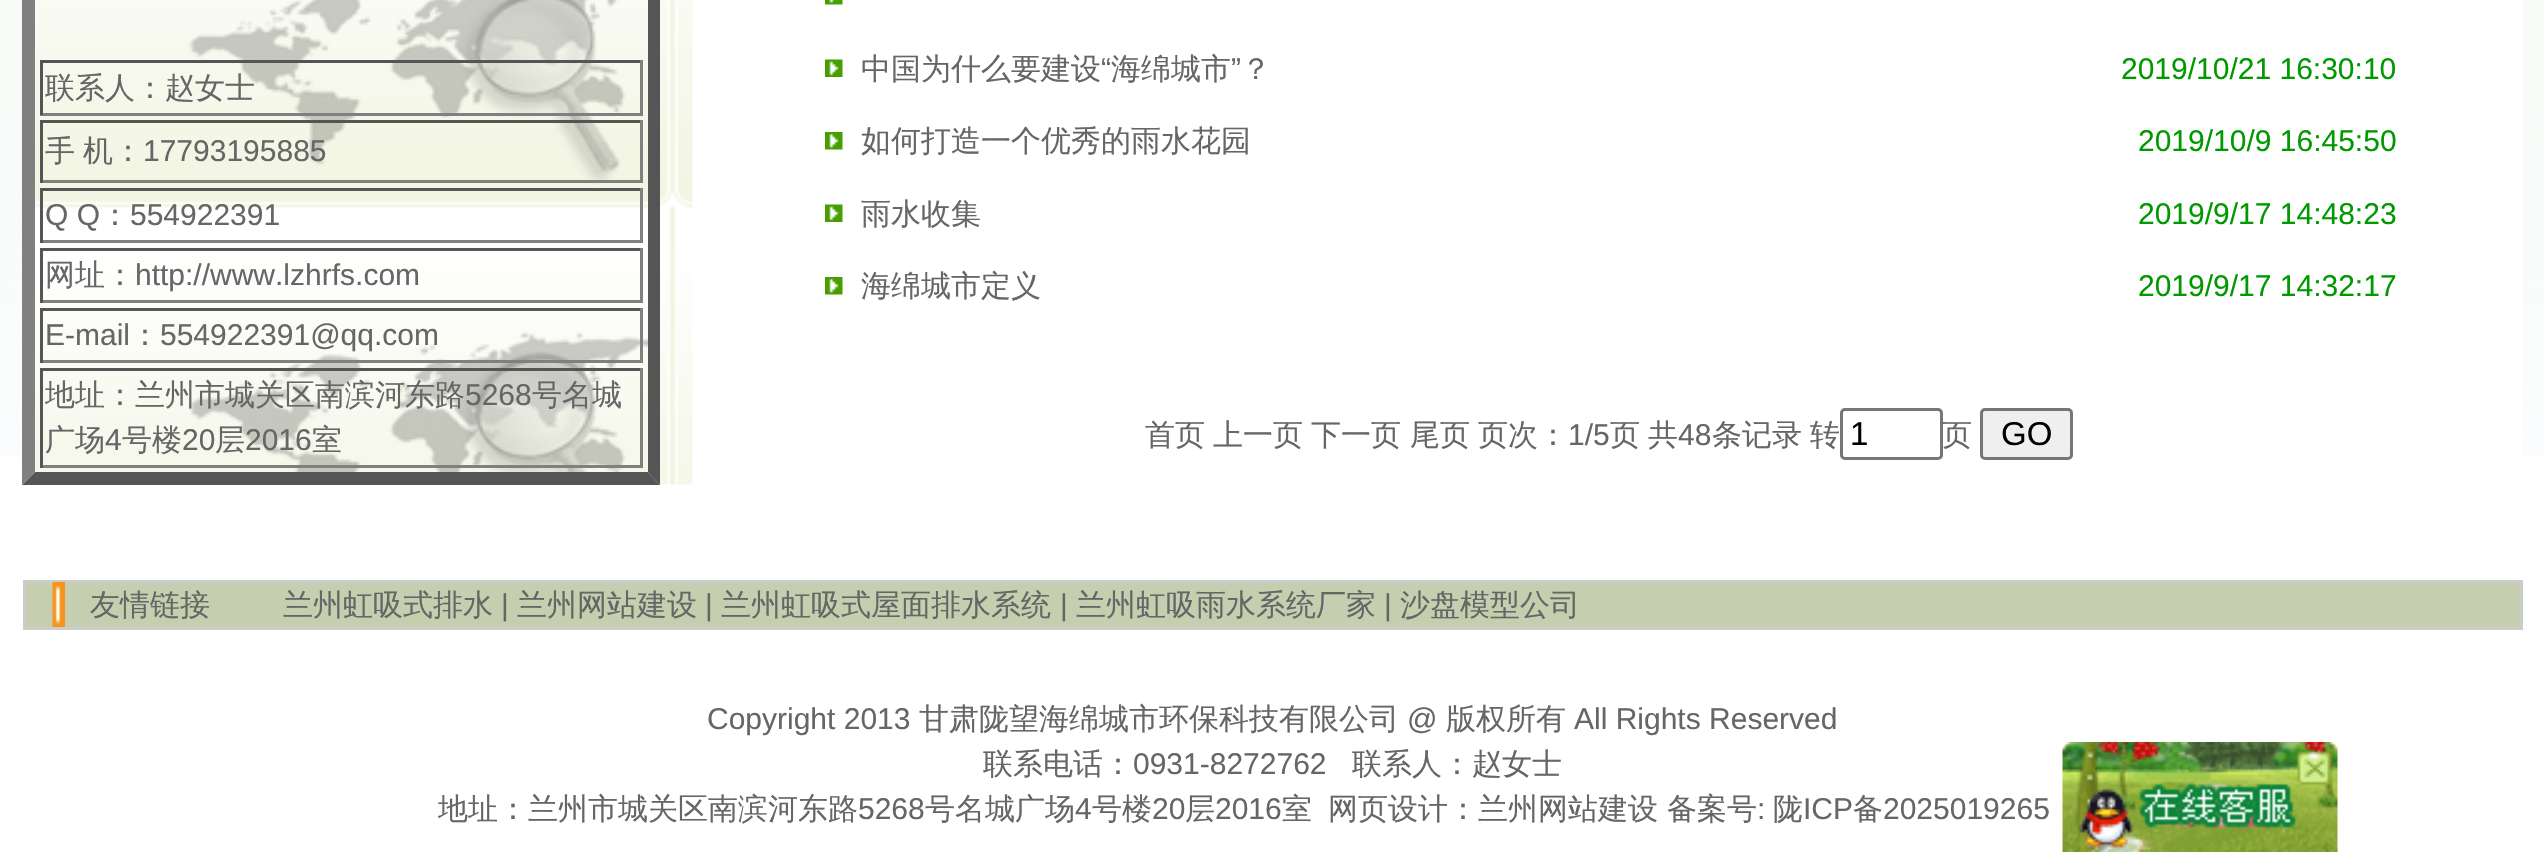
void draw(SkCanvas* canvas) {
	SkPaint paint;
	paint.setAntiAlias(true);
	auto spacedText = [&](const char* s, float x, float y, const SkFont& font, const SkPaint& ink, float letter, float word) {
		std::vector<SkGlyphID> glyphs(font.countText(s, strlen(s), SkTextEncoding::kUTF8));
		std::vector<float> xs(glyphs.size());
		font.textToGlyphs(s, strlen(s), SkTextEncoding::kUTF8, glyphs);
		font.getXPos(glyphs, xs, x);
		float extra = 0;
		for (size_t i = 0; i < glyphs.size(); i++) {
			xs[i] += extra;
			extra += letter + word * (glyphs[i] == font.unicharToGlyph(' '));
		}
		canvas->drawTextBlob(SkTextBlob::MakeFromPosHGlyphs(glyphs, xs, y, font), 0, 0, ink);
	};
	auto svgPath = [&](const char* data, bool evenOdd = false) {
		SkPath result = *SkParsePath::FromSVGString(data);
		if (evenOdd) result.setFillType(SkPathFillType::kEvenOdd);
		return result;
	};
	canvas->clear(0xffffffff);
	canvas->drawImageRect(SkImages::DeferredFromEncodedData(SkData::MakeFromFileName("img1.png")), SkRect::MakeXYWH(0, 0, 2544, 457), SkSamplingOptions());
	paint.setColor(0xffffffff);
	canvas->drawRect(SkRect::MakeXYWH(23, 0, 2500, 457), paint);
	canvas->drawImageRect(SkImages::DeferredFromEncodedData(SkData::MakeFromFileName("img2.png")), SkRect::MakeXYWH(22, 0, 671, 485), SkSamplingOptions());
	paint.setColor(0xff555555);
	canvas->drawPath(svgPath("M660-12V485L648 472V0Z"), paint);
	canvas->drawPath(svgPath("M660 485H22L35 472H648Z"), paint);
	paint.setColor(0xff808080);
	canvas->drawPath(svgPath("M22 485V-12L35 0V472Z"), paint);
	paint.setColor(0xff555555);
	canvas->drawRect(SkRect::MakeXYWH(40, 60, 603, 3), paint);
	paint.setColor(0xff808080);
	canvas->drawRect(SkRect::MakeXYWH(640, 60, 3, 55), paint);
	canvas->drawRect(SkRect::MakeXYWH(40, 113, 603, 3), paint);
	paint.setColor(0xff555555);
	canvas->drawRect(SkRect::MakeXYWH(40, 60, 3, 55), paint);
	SkFont f1(fontMgr->matchFamilyStyle("WenQuanYi Zen Hei", SkFontStyle(500, SkFontStyle::kNormal_Width, SkFontStyle::kUpright_Slant)), 30);
	f1.setSubpixel(true);
	paint.setColor(0xff666666);
	canvas->drawString("联系人：赵女士", 45, 98, f1, paint);
	paint.setColor(0xff555555);
	canvas->drawRect(SkRect::MakeXYWH(40, 120, 603, 3), paint);
	paint.setColor(0xff808080);
	canvas->drawRect(SkRect::MakeXYWH(640, 120, 3, 63), paint);
	canvas->drawRect(SkRect::MakeXYWH(40, 180, 603, 3), paint);
	paint.setColor(0xff555555);
	canvas->drawRect(SkRect::MakeXYWH(40, 120, 3, 63), paint);
	paint.setColor(0xff666666);
	spacedText("手 机：", 45, 161, f1, paint, 0, -1);
	SkFont f2(fontMgr->matchFamilyStyle("Liberation Sans", SkFontStyle::Normal()), 30);
	f2.setSubpixel(true);
	canvas->drawString("17793195885", 143, 161, f2, paint);
	paint.setColor(0xff555555);
	canvas->drawRect(SkRect::MakeXYWH(40, 188, 603, 3), paint);
	paint.setColor(0xff808080);
	canvas->drawRect(SkRect::MakeXYWH(640, 188, 3, 55), paint);
	canvas->drawRect(SkRect::MakeXYWH(40, 240, 603, 3), paint);
	paint.setColor(0xff555555);
	canvas->drawRect(SkRect::MakeXYWH(40, 188, 3, 55), paint);
	paint.setColor(0xff666666);
	canvas->drawString("Q Q", 45, 225, f2, paint);
	canvas->drawString("：", 100, 225, f1, paint);
	canvas->drawString("554922391", 130, 225, f2, paint);
	paint.setColor(0xff555555);
	canvas->drawRect(SkRect::MakeXYWH(40, 248, 603, 3), paint);
	paint.setColor(0xff808080);
	canvas->drawRect(SkRect::MakeXYWH(640, 248, 3, 55), paint);
	canvas->drawRect(SkRect::MakeXYWH(40, 300, 603, 3), paint);
	paint.setColor(0xff555555);
	canvas->drawRect(SkRect::MakeXYWH(40, 248, 3, 55), paint);
	paint.setColor(0xff666666);
	canvas->drawString("网址：", 45, 285, f1, paint);
	canvas->drawString("http://www.lzhrfs.com", 135, 285, f2, paint);
	paint.setColor(0xff555555);
	canvas->drawRect(SkRect::MakeXYWH(40, 308, 603, 3), paint);
	paint.setColor(0xff808080);
	canvas->drawRect(SkRect::MakeXYWH(640, 308, 3, 55), paint);
	canvas->drawRect(SkRect::MakeXYWH(40, 360, 603, 3), paint);
	paint.setColor(0xff555555);
	canvas->drawRect(SkRect::MakeXYWH(40, 308, 3, 55), paint);
	paint.setColor(0xff666666);
	canvas->drawString("E-mail", 45, 345, f2, paint);
	canvas->drawString("：", 130, 345, f1, paint);
	canvas->drawString("554922391@qq.com", 160, 345, f2, paint);
	paint.setColor(0xff555555);
	canvas->drawRect(SkRect::MakeXYWH(40, 368, 603, 3), paint);
	paint.setColor(0xff808080);
	canvas->drawRect(SkRect::MakeXYWH(640, 368, 3, 100), paint);
	canvas->drawRect(SkRect::MakeXYWH(40, 465, 603, 3), paint);
	paint.setColor(0xff555555);
	canvas->drawRect(SkRect::MakeXYWH(40, 368, 3, 100), paint);
	paint.setColor(0xff666666);
	canvas->drawString("地址：兰州市城关区南滨河东路", 45, 405, f1, paint);
	canvas->drawString("5268", 465, 405, f2, paint);
	canvas->drawString("号名城", 532, 405, f1, paint);
	canvas->drawString("广场", 45, 450, f1, paint);
	canvas->drawString("4", 105, 450, f2, paint);
	canvas->drawString("号楼", 122, 450, f1, paint);
	canvas->drawString("20", 182, 450, f2, paint);
	canvas->drawString("层", 215, 450, f1, paint);
	canvas->drawString("2016", 245, 450, f2, paint);
	canvas->drawString("室", 312, 450, f1, paint);
	canvas->drawImageRect(SkImages::DeferredFromEncodedData(SkData::MakeFromFileName("img3.png")), SkRect::MakeXYWH(825, 0, 18, 5), SkSamplingOptions());
	canvas->drawImageRect(SkImages::DeferredFromEncodedData(SkData::MakeFromFileName("img4.png")), SkRect::MakeXYWH(825, 59, 18, 18), SkSamplingOptions());
	canvas->drawString("中国为什么要建设", 861, 79, f1, paint);
	canvas->drawString("“", 1101, 79, f2, paint);
	canvas->drawString("海绵城市", 1111, 79, f1, paint);
	canvas->drawString("”", 1231, 79, f2, paint);
	canvas->drawString("？", 1241, 79, f1, paint);
	paint.setColor(0xff009900);
	canvas->drawString("2019/10/21 16:30:10", 2121, 79, f2, paint);
	canvas->drawImageRect(SkImages::DeferredFromEncodedData(SkData::MakeFromFileName("img5.png")), SkRect::MakeXYWH(825, 132, 18, 18), SkSamplingOptions());
	paint.setColor(0xff666666);
	canvas->drawString("如何打造一个优秀的雨水花园", 861, 151, f1, paint);
	paint.setColor(0xff009900);
	canvas->drawString("2019/10/9 16:45:50", 2138, 151, f2, paint);
	canvas->drawImageRect(SkImages::DeferredFromEncodedData(SkData::MakeFromFileName("img4.png")), SkRect::MakeXYWH(825, 204, 18, 18), SkSamplingOptions());
	paint.setColor(0xff666666);
	canvas->drawString("雨水收集", 861, 224, f1, paint);
	paint.setColor(0xff009900);
	canvas->drawString("2019/9/17 14:48:23", 2138, 224, f2, paint);
	canvas->drawImageRect(SkImages::DeferredFromEncodedData(SkData::MakeFromFileName("img5.png")), SkRect::MakeXYWH(825, 277, 18, 18), SkSamplingOptions());
	paint.setColor(0xff666666);
	canvas->drawString("海绵城市定义", 861, 296, f1, paint);
	paint.setColor(0xff009900);
	canvas->drawString("2019/9/17 14:32:17", 2138, 296, f2, paint);
	paint.setColor(0xff666666);
	canvas->drawString("首页", 1145, 445, f1, paint);
	canvas->drawString("上一页", 1213, 445, f1, paint);
	canvas->drawString("下一页", 1311, 445, f1, paint);
	canvas->drawString("尾页", 1410, 445, f1, paint);
	canvas->drawString("页次：", 1478, 445, f1, paint);
	canvas->drawString("1/5", 1568, 445, f2, paint);
	canvas->drawString("页", 1610, 445, f1, paint);
	canvas->drawString("共", 1648, 445, f1, paint);
	canvas->drawString("48", 1678, 445, f2, paint);
	canvas->drawString("条记录", 1712, 445, f1, paint);
	canvas->drawString("转", 1810, 445, f1, paint);
	paint.setStroke(true);
	paint.setStrokeWidth(3);
	paint.setColor(0xff767676);
	canvas->drawRoundRect(SkRect::MakeXYWH(1841.5, 409.5, 100, 49), 3.5, 3.5, paint);
	SkFont f3(fontMgr->matchFamilyStyle("Liberation Sans", SkFontStyle::Normal()), 33);
	f3.setSubpixel(true);
	paint.setStroke(false);
	paint.setColor(0xff000000);
	canvas->drawString("1", 1850, 445, f3, paint);
	paint.setColor(0xff666666);
	canvas->drawString("页", 1942, 445, f1, paint);
	paint.setColor(0xffefefef);
	canvas->drawRoundRect(SkRect::MakeXYWH(1981.5, 409.5, 90, 49), 3.5, 3.5, paint);
	paint.setStroke(true);
	paint.setColor(0xff767676);
	canvas->drawRoundRect(SkRect::MakeXYWH(1981.5, 409.5, 90, 49), 3.5, 3.5, paint);
	paint.setStroke(false);
	paint.setColor(0xff000000);
	canvas->drawString("GO", 2001, 445, f3, paint);
	paint.setColor(0xffc5cfaf);
	canvas->drawRect(SkRect::MakeXYWH(24.5, 581.5, 2497, 47), paint);
	paint.setStroke(true);
	paint.setColor(0xffcccccc);
	canvas->drawRect(SkRect::MakeXYWH(24.5, 581.5, 2497, 47), paint);
	canvas->drawImageRect(SkImages::DeferredFromEncodedData(SkData::MakeFromFileName("img6.png")), SkRect::MakeXYWH(52, 582, 13, 45), SkSamplingOptions());
	paint.setStroke(false);
	paint.setColor(0xff666666);
	canvas->drawString("友情链接", 90, 615, f1, paint);
	canvas->drawString("兰州虹吸式排水", 283, 615, f1, paint);
	canvas->drawString("|", 501, 615, f2, paint);
	canvas->drawString("兰州网站建设", 517, 615, f1, paint);
	canvas->drawString("|", 705, 615, f2, paint);
	canvas->drawString("兰州虹吸式屋面排水系统", 721, 615, f1, paint);
	canvas->drawString("|", 1060, 615, f2, paint);
	canvas->drawString("兰州虹吸雨水系统厂家", 1076, 615, f1, paint);
	canvas->drawString("|", 1384, 615, f2, paint);
	canvas->drawString("沙盘模型公司", 1400, 615, f1, paint);
	canvas->drawString("Copyright 2013", 707, 729, f2, paint);
	canvas->drawString("甘肃陇望海绵城市环保科技有限公司", 919, 729, f1, paint);
	canvas->drawString("@", 1407, 729, f2, paint);
	canvas->drawString("版权所有", 1446, 729, f1, paint);
	canvas->drawString("All Rights Reserved", 1574, 729, f2, paint);
	canvas->drawString("联系电话：", 983, 774, f1, paint);
	canvas->drawString("0931-8272762", 1133, 774, f2, paint);
	canvas->drawString("联系人：赵女士", 1352, 774, f1, paint);
	canvas->drawString("地址：兰州市城关区南滨河东路", 438, 819, f1, paint);
	canvas->drawString("5268", 858, 819, f2, paint);
	canvas->drawString("号名城广场", 925, 819, f1, paint);
	canvas->drawString("4", 1075, 819, f2, paint);
	canvas->drawString("号楼", 1092, 819, f1, paint);
	canvas->drawString("20", 1152, 819, f2, paint);
	canvas->drawString("层", 1185, 819, f1, paint);
	canvas->drawString("2016", 1215, 819, f2, paint);
	canvas->drawString("室", 1282, 819, f1, paint);
	canvas->drawString("网页设计：兰州网站建设", 1328, 819, f1, paint);
	canvas->drawString("备案号", 1667, 819, f1, paint);
	canvas->drawString(":", 1757, 819, f2, paint);
	canvas->drawString("陇", 1773, 819, f1, paint);
	canvas->drawString("ICP", 1803, 819, f2, paint);
	canvas->drawString("备", 1853, 819, f1, paint);
	canvas->drawString("2025019265", 1883, 819, f2, paint);
	canvas->drawImageRect(SkImages::DeferredFromEncodedData(SkData::MakeFromFileName("img7.png")), SkRect::MakeXYWH(2062, 742, 276, 110), SkSamplingOptions());
}
